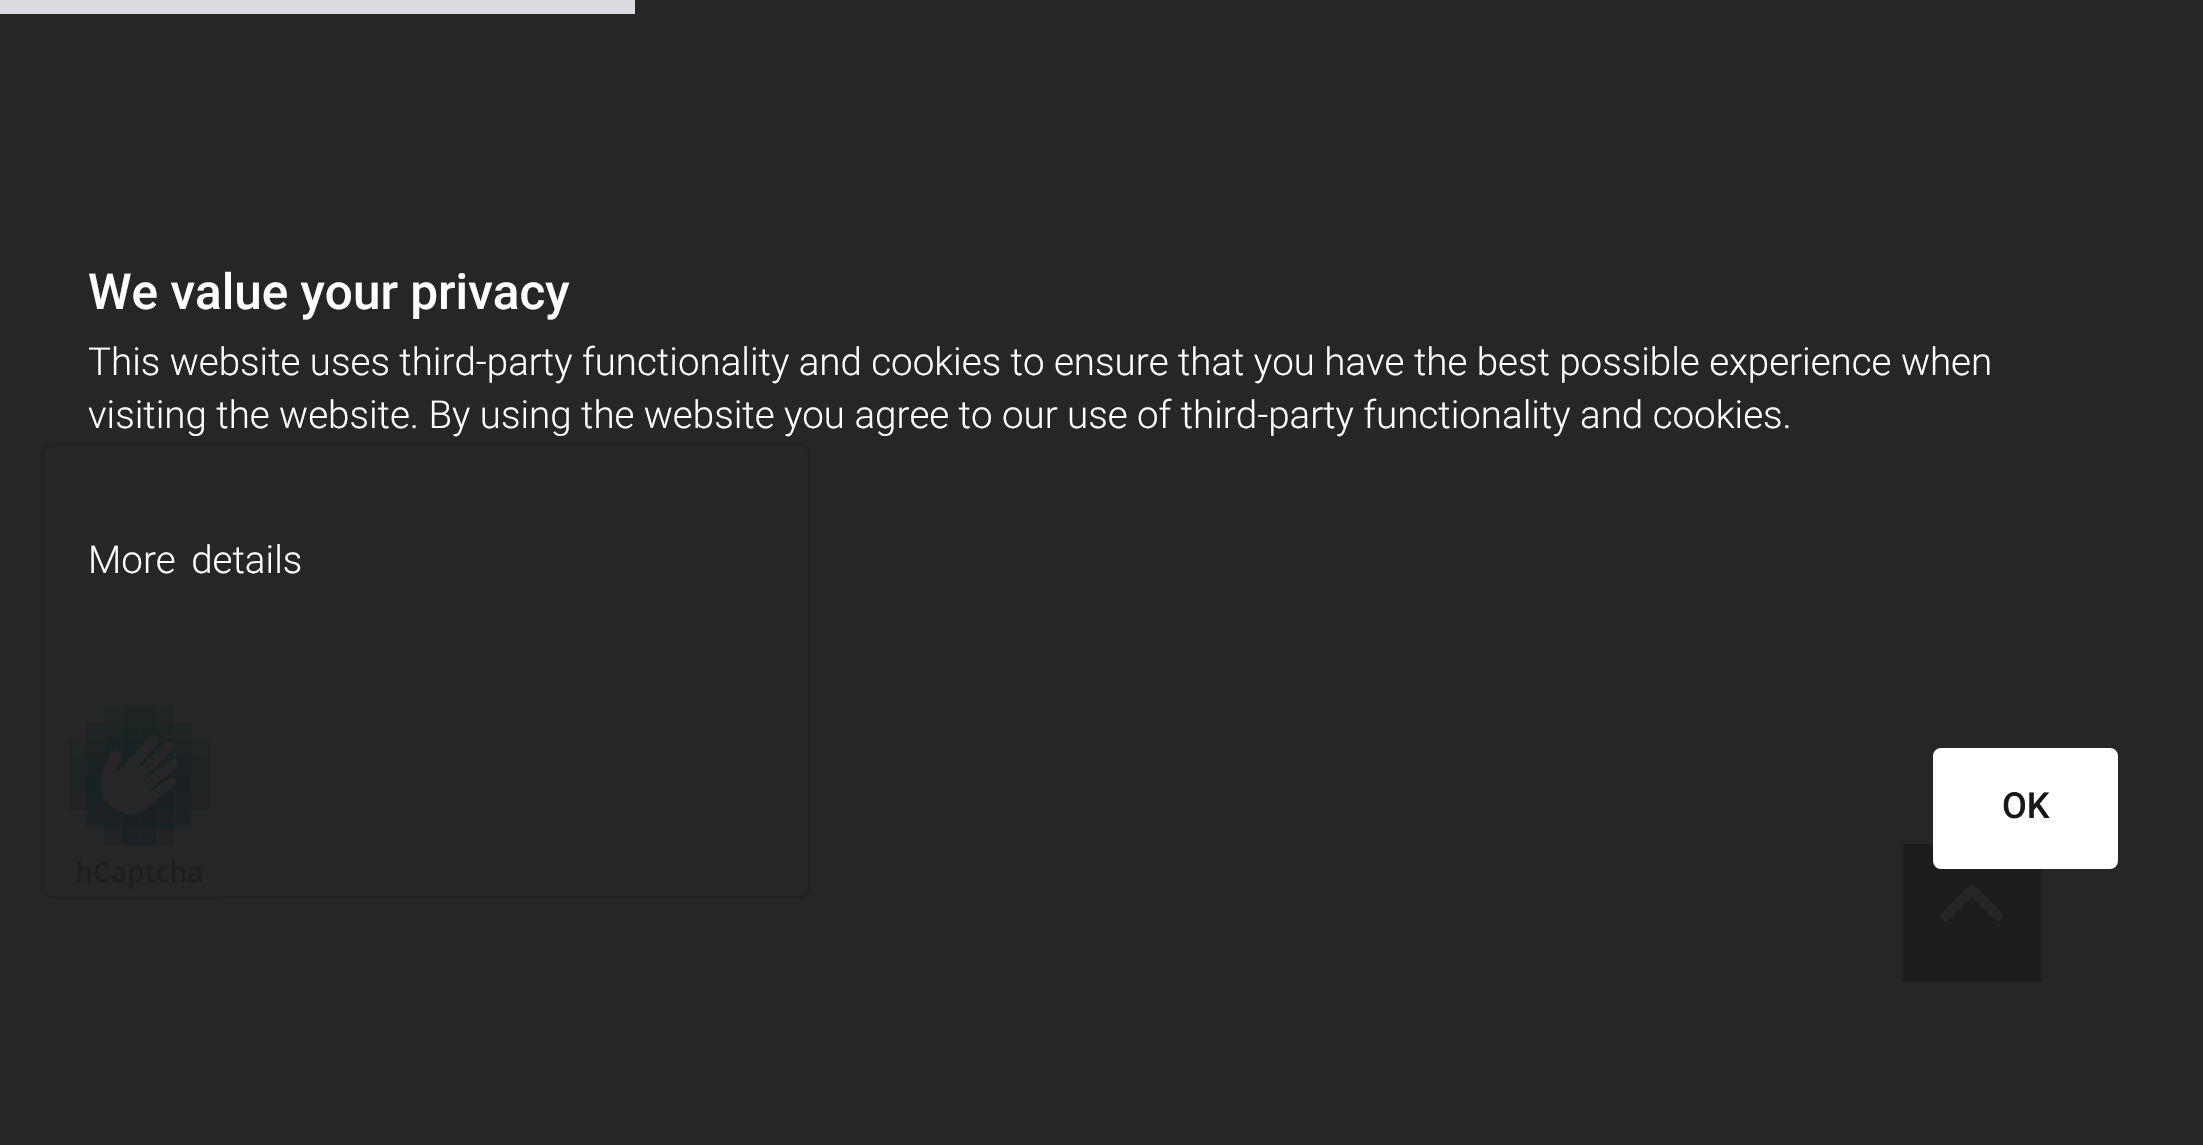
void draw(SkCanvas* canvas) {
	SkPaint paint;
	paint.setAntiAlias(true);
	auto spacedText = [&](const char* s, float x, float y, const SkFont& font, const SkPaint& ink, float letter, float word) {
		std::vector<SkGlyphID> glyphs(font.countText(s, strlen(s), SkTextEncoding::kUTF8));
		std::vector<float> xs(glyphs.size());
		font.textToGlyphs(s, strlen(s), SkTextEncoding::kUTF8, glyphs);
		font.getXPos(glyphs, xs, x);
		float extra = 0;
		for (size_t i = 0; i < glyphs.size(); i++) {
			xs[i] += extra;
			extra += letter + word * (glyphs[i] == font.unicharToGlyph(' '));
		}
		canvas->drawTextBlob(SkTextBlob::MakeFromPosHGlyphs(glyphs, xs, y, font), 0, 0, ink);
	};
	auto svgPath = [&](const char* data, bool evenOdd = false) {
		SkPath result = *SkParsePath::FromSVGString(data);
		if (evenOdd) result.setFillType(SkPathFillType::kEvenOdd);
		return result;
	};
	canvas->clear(0xff262626);
	paint.setColor(0xffdcdce0);
	canvas->drawRect(SkRect::MakeXYWH(0, 0, 635, 14), paint);
	paint.setStroke(true);
	paint.setStrokeWidth(3);
	paint.setColor(0xff232324);
	canvas->drawRoundRect(SkRect::MakeXYWH(42.5, 444.5, 767, 453), 9.5, 9.5, paint);
	canvas->drawImageRect(SkImages::DeferredFromEncodedData(SkData::MakeFromFileName("img1.png")), SkRect::MakeXYWH(52, 704, 171, 193), SkSamplingOptions());
	SkFont f1(fontMgr->matchFamilyStyle("Roboto", SkFontStyle(500, SkFontStyle::kNormal_Width, SkFontStyle::kUpright_Slant)), 49.5);
	f1.setSubpixel(true);
	paint.setStroke(false);
	paint.setColor(0xffffffff);
	canvas->drawString("We value your privacy", 88, 309, f1, paint);
	SkFont f2(fontMgr->matchFamilyStyle("Roboto", SkFontStyle(300, SkFontStyle::kNormal_Width, SkFontStyle::kUpright_Slant)), 38.5);
	f2.setSubpixel(true);
	canvas->drawString("This website uses third-party functionality and cookies to ensure that you have the best possible experience when", 88, 375, f2, paint);
	canvas->drawString("visiting the website. By using the website you agree to our use of third-party functionality and cookies.", 88, 428, f2, paint);
	spacedText("More details", 88, 573, f2, paint, 0, 6);
	paint.setColor(0xff1d1d1d);
	canvas->drawRect(SkRect::MakeXYWH(1903, 844, 138, 138), paint);
	paint.setColor(0xffffffff);
	canvas->drawRoundRect(SkRect::MakeXYWH(1934.5, 749.5, 182, 118), 6.5, 6.5, paint);
	paint.setStroke(true);
	canvas->drawRoundRect(SkRect::MakeXYWH(1934.5, 749.5, 182, 118), 6.5, 6.5, paint);
	SkFont f3(fontMgr->matchFamilyStyle("Roboto", SkFontStyle(500, SkFontStyle::kNormal_Width, SkFontStyle::kUpright_Slant)), 36);
	f3.setSubpixel(true);
	paint.setStroke(false);
	paint.setColor(0xff181818);
	canvas->drawString("OK", 2002, 818, f3, paint);
	paint.setColor(0xff262626);
	canvas->drawPath(svgPath("M1968 887C1973 882 1977 888 1980 891L1997 908C2000 911 2006 915 2001 920C2000 921 1998 921 1997 921C1993 920 1976 901 1972 897L1957 912C1954 915 1949 923 1944 921C1935 916 1949 906 1951 904Z"), paint);
}
